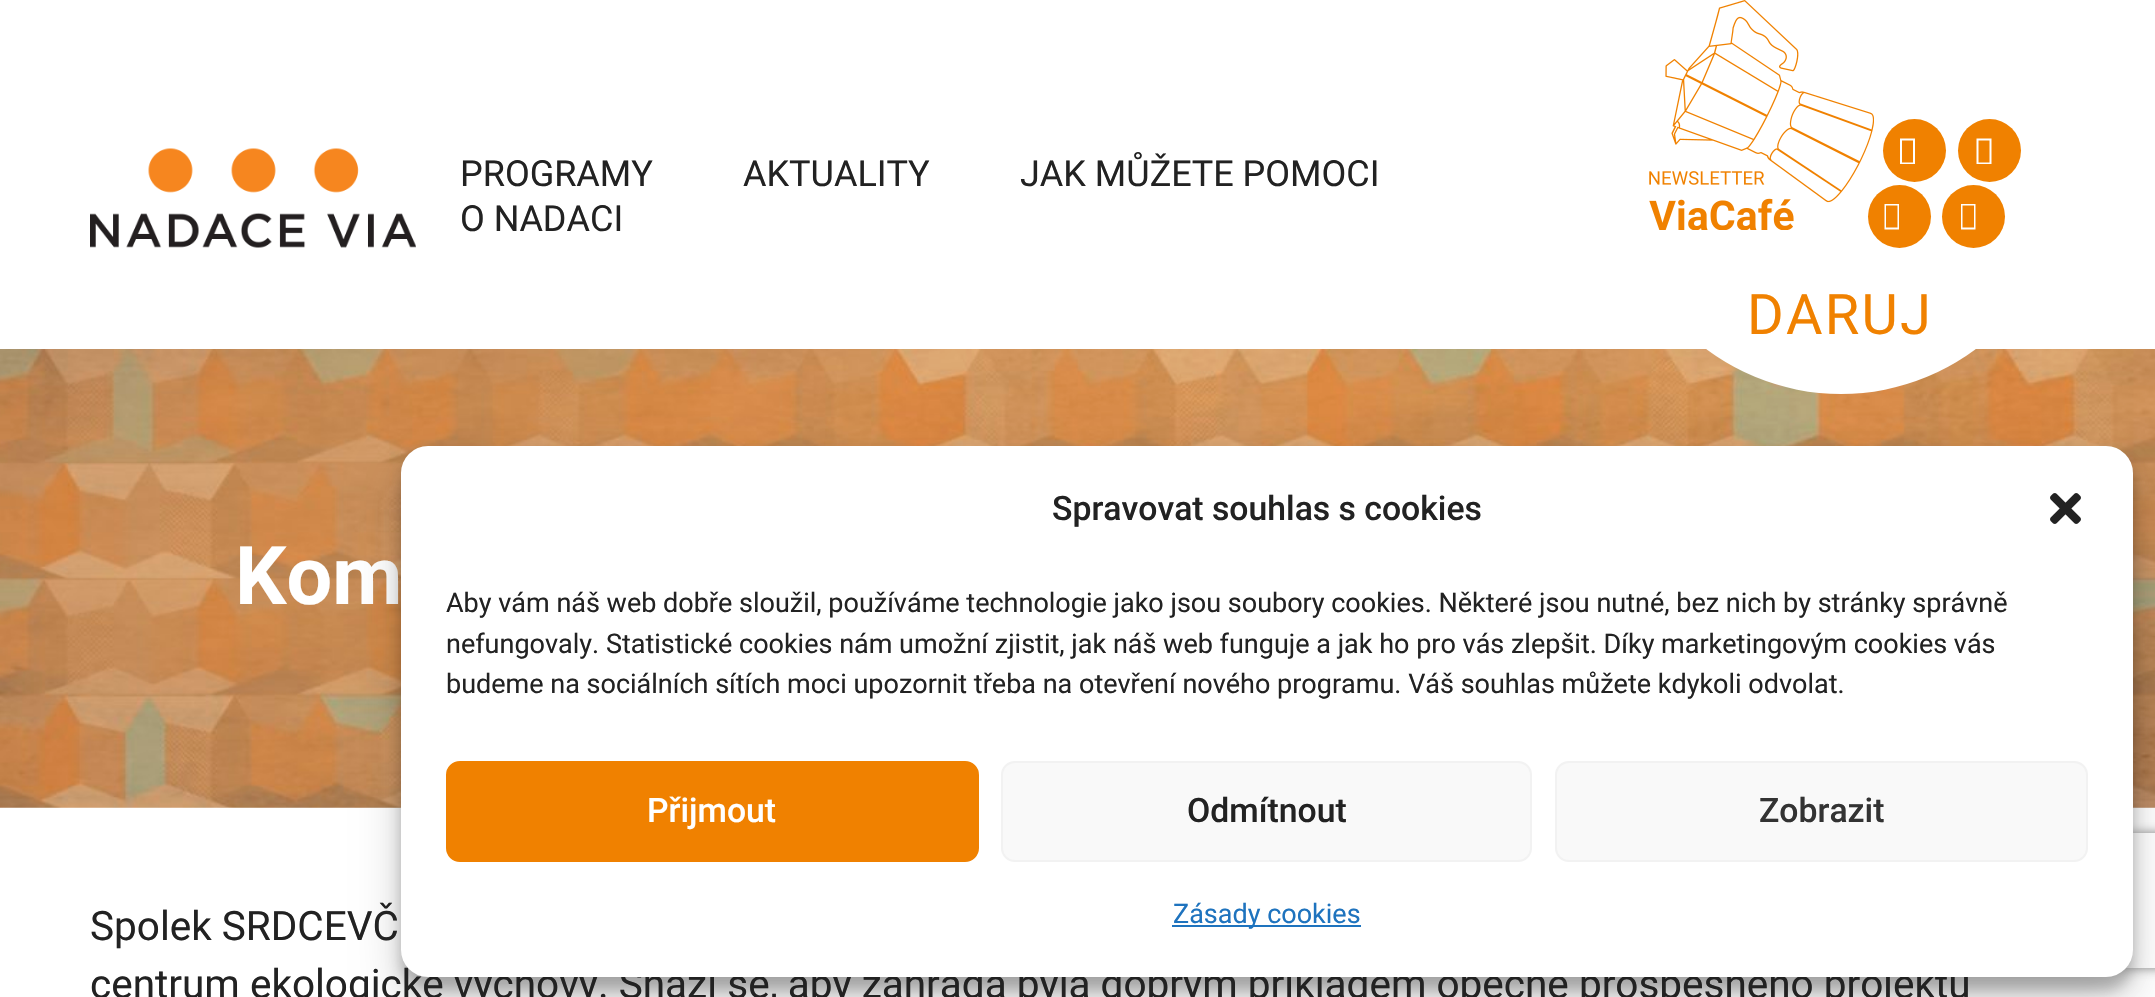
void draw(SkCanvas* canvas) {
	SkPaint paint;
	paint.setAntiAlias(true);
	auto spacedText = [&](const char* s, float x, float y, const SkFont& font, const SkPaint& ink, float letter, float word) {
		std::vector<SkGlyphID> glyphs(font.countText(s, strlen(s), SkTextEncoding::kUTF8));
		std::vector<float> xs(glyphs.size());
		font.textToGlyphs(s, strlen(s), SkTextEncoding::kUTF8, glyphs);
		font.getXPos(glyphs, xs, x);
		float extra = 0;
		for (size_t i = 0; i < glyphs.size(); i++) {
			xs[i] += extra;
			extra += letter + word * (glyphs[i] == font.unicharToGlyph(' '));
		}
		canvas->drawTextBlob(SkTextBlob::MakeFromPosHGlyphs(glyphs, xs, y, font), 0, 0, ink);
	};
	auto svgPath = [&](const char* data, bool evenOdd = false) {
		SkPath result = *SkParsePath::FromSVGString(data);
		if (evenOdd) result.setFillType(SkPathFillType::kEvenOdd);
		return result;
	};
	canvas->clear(0xffffffff);
	canvas->drawImageRect(SkImages::DeferredFromEncodedData(SkData::MakeFromFileName("img1.png")), SkRect::MakeXYWH(90, 148, 326, 100), SkSamplingOptions());
	SkFont f1(fontMgr->matchFamilyStyle("Roboto", SkFontStyle::Normal()), 36);
	f1.setSubpixel(true);
	paint.setColor(0xff222222);
	canvas->drawString("PROGRAMY", 460, 186, f1, paint);
	canvas->drawString("AKTUALITY", 743, 186, f1, paint);
	canvas->drawString("JAK MŮŽETE POMOCI", 1020, 186, f1, paint);
	canvas->drawString("O NADACI", 460, 231, f1, paint);
	canvas->drawImageRect(SkImages::DeferredFromEncodedData(SkData::MakeFromFileName("img3.png")), SkRect::MakeXYWH(0, 349, 2155, 459), SkSamplingOptions());
	paint.setColor(0xffffffff);
	canvas->drawCircle(1841, 169, 225, paint);
	canvas->drawImageRect(SkImages::DeferredFromEncodedData(SkData::MakeFromFileName("img2.png")), SkRect::MakeXYWH(1649, 0, 225, 230), SkSamplingOptions());
	paint.setColor(0xfff08100);
	canvas->drawCircle(1914.5, 150.5, 31.5, paint);
	paint.setColor(0xffffffff);
	canvas->drawPath(svgPath("M1900 164V138.5H1915V164ZM1902 162.5H1913V140.5H1902Z"), paint);
	paint.setColor(0xfff08100);
	canvas->drawCircle(1989.5, 150.5, 31.5, paint);
	paint.setColor(0xffffffff);
	canvas->drawPath(svgPath("M1976.5 164V138.5H1991.5V164ZM1978.5 162.5H1989.5V140.5H1978.5Z"), paint);
	paint.setColor(0xfff08100);
	canvas->drawCircle(1899.5, 216.5, 31.5, paint);
	paint.setColor(0xffffffff);
	canvas->drawPath(svgPath("M1884.5 229.5V204H1899V229.5ZM1886 227.5H1897.5V205.5H1886Z"), paint);
	paint.setColor(0xfff08100);
	canvas->drawCircle(1973.5, 216.5, 31.5, paint);
	paint.setColor(0xffffffff);
	canvas->drawPath(svgPath("M1961 229.5V204H1975.5V229.5ZM1962.5 227.5H1974V205.5H1962.5Z"), paint);
	SkFont f2(fontMgr->matchFamilyStyle("Roboto", SkFontStyle::Normal()), 56);
	f2.setSubpixel(true);
	paint.setColor(0xfff08100);
	spacedText("DARUJ", 1747, 334, f2, paint, 2.25, 0);
	SkFont f3(fontMgr->matchFamilyStyle("Roboto", SkFontStyle::Bold()), 81);
	f3.setSubpixel(true);
	paint.setColor(0xffffffff);
	canvas->drawString("Kom", 235, 604, f3, paint);
	paint.setColor(0x3b000000);
	paint.setMaskFilter(SkMaskFilter::MakeBlur(kNormal_SkBlurStyle, 7));
	canvas->drawRoundRect(SkRect::MakeXYWH(401, 459, 1732, 531), 27, 27, paint);
	paint.setMaskFilter(nullptr);
	paint.setColor(0x30000000);
	paint.setMaskFilter(SkMaskFilter::MakeBlur(kNormal_SkBlurStyle, 22.5));
	canvas->drawRoundRect(SkRect::MakeXYWH(401, 468, 1732, 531), 27, 27, paint);
	paint.setMaskFilter(nullptr);
	SkFont f4(fontMgr->matchFamilyStyle("Roboto", SkFontStyle::Normal()), 40.5);
	f4.setSubpixel(true);
	paint.setColor(0xff222222);
	canvas->drawString("centrum ekologické výchovy. Snaží se, aby zahrada byla dobrým příkladem obecně prospěšného projektu", 90, 998, f4, paint);
	canvas->save();
	canvas->clipPath(svgPath("M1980 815H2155V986H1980ZM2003 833H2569C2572 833 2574 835 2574 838V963C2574 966 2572 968 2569 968H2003C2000 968 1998 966 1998 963V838C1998 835 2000 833 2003 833Z", true), true);
	paint.setColor(0xff808080);
	paint.setMaskFilter(SkMaskFilter::MakeBlur(kNormal_SkBlurStyle, 5.5));
	canvas->drawRoundRect(SkRect::MakeXYWH(1998, 833, 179, 135), 5, 5, paint);
	paint.setMaskFilter(nullptr);
	canvas->restore();
	paint.setColor(0xffffffff);
	canvas->drawRoundRect(SkRect::MakeXYWH(401, 446, 1732, 531), 27, 27, paint);
	SkFont f5(fontMgr->matchFamilyStyle("Roboto", SkFontStyle(500, SkFontStyle::kNormal_Width, SkFontStyle::kUpright_Slant)), 33.75);
	f5.setSubpixel(true);
	paint.setColor(0xff222222);
	canvas->drawString("Spravovat souhlas s cookies", 1052, 520, f5, paint);
	canvas->drawImageRect(SkImages::DeferredFromEncodedData(SkData::MakeFromFileName("img4.png")), SkRect::MakeXYWH(2050, 493, 31, 31), SkSamplingOptions());
	SkFont f6(fontMgr->matchFamilyStyle("Roboto", SkFontStyle::Normal()), 27);
	f6.setSubpixel(true);
	canvas->drawString("Aby vám náš web dobře sloužil, používáme technologie jako jsou soubory cookies. Některé jsou nutné, bez nich by stránky správně", 446, 612, f6, paint);
	canvas->drawString("nefungovaly. Statistické cookies nám umožní zjistit, jak náš web funguje a jak ho pro vás zlepšit. Díky marketingovým cookies vás", 446, 653, f6, paint);
	canvas->drawString("budeme na sociálních sítích moci upozornit třeba na otevření nového programu. Váš souhlas můžete kdykoli odvolat.", 446, 693, f6, paint);
	paint.setColor(0xfff08100);
	canvas->drawRoundRect(SkRect::MakeXYWH(447, 762, 531, 99), 13, 13, paint);
	paint.setStroke(true);
	paint.setStrokeWidth(2);
	canvas->drawRoundRect(SkRect::MakeXYWH(447, 762, 531, 99), 13, 13, paint);
	paint.setStroke(false);
	paint.setColor(0xffffffff);
	canvas->drawString("Přijmout", 647, 822, f5, paint);
	paint.setColor(0xfff9f9f9);
	canvas->drawRoundRect(SkRect::MakeXYWH(1002, 762, 529, 99), 13, 13, paint);
	paint.setStroke(true);
	paint.setColor(0xfff2f2f2);
	canvas->drawRoundRect(SkRect::MakeXYWH(1002, 762, 529, 99), 13, 13, paint);
	paint.setStroke(false);
	paint.setColor(0xff222222);
	canvas->drawString("Odmítnout", 1187, 822, f5, paint);
	paint.setColor(0xfff9f9f9);
	canvas->drawRoundRect(SkRect::MakeXYWH(1556, 762, 531, 99), 13, 13, paint);
	paint.setStroke(true);
	paint.setColor(0xfff2f2f2);
	canvas->drawRoundRect(SkRect::MakeXYWH(1556, 762, 531, 99), 13, 13, paint);
	paint.setStroke(false);
	paint.setColor(0xff333333);
	canvas->drawString("Zobrazit", 1759, 822, f5, paint);
	paint.setColor(0xff1e73be);
	canvas->drawRect(SkRect::MakeXYWH(1172, 925, 189, 2), paint);
	canvas->drawString("Zásady cookies", 1173, 923, f6, paint);
	paint.setColor(0xff222222);
	canvas->drawString("Spolek SRDCEVČ", 90, 940, f4, paint);
}
